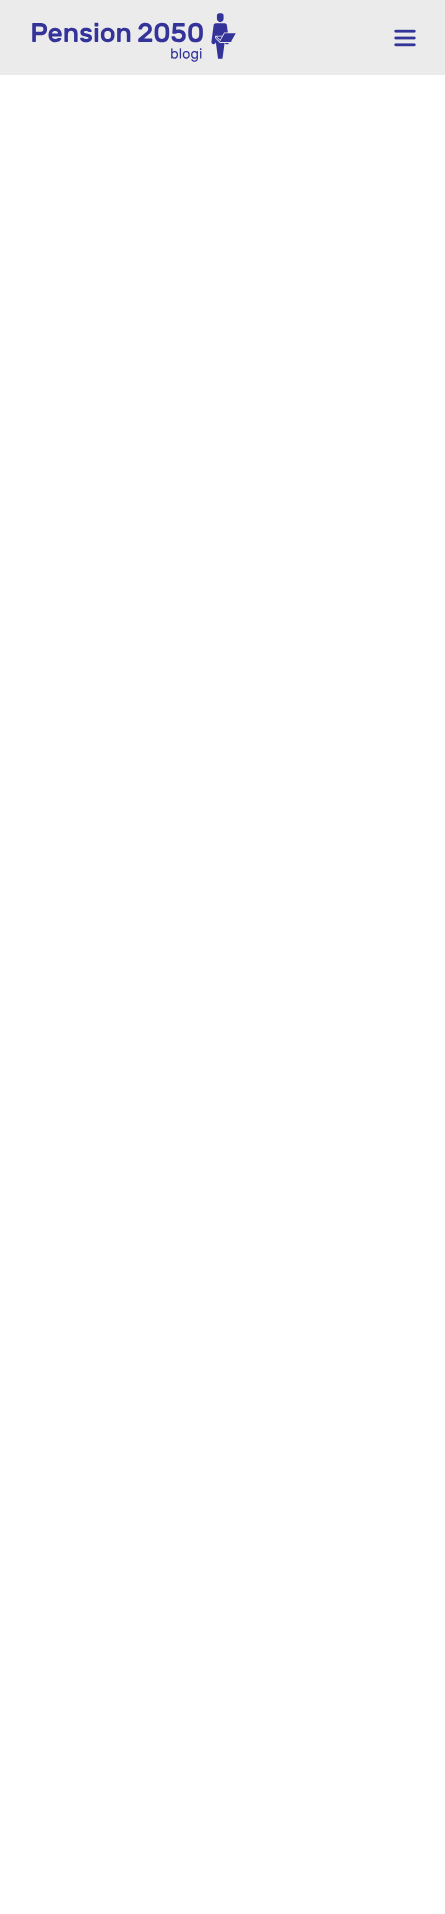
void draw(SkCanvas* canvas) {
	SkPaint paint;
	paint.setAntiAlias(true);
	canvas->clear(0xffffffff);
	paint.setColor(0xffebebeb);
	canvas->drawRect(SkRect::MakeXYWH(0, 0, 445, 75), paint);
	canvas->drawImageRect(SkImages::DeferredFromEncodedData(SkData::MakeFromFileName("img1.png")), SkRect::MakeXYWH(32, 13, 204, 49), SkSamplingOptions());
	canvas->drawImageRect(SkImages::DeferredFromEncodedData(SkData::MakeFromFileName("img2.png")), SkRect::MakeXYWH(394, 29, 22, 18), SkSamplingOptions());
}
